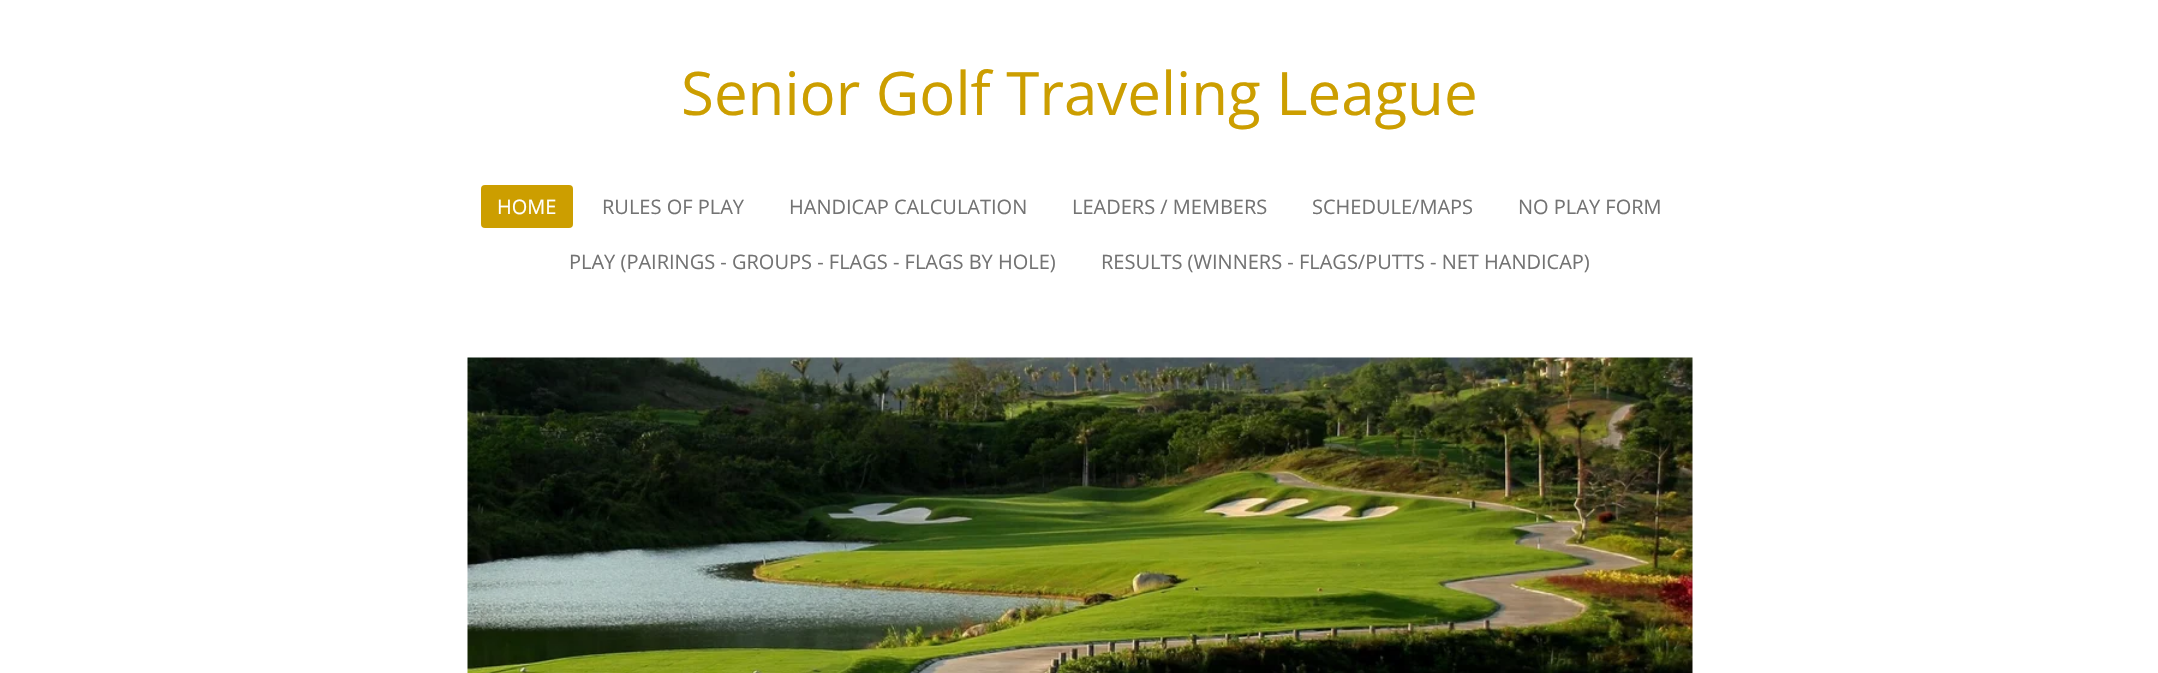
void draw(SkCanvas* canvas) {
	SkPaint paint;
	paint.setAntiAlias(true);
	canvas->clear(0xffffffff);
	SkFont f1(fontMgr->matchFamilyStyle("Open Sans", SkFontStyle::Normal()), 60);
	f1.setSubpixel(true);
	paint.setColor(0xffcc9e00);
	canvas->drawString("Senior Golf Traveling League", 681, 115, f1, paint);
	canvas->drawRoundRect(SkRect::MakeXYWH(481, 185, 92, 43), 4, 4, paint);
	SkFont f2(fontMgr->matchFamilyStyle("Open Sans", SkFontStyle::Normal()), 20);
	f2.setSubpixel(true);
	paint.setColor(0xffffffff);
	canvas->drawString("HOME", 497, 214, f2, paint);
	paint.setColor(0xff737373);
	canvas->drawString("RULES OF PLAY", 602, 214, f2, paint);
	canvas->drawString("HANDICAP CALCULATION", 789, 214, f2, paint);
	canvas->drawString("LEADERS / MEMBERS", 1072, 214, f2, paint);
	canvas->drawString("SCHEDULE/MAPS", 1312, 214, f2, paint);
	canvas->drawString("NO PLAY FORM", 1518, 214, f2, paint);
	canvas->drawString("PLAY (PAIRINGS - GROUPS - FLAGS - FLAGS BY HOLE)", 569, 269, f2, paint);
	canvas->drawString("RESULTS (WINNERS - FLAGS/PUTTS - NET HANDICAP)", 1101, 269, f2, paint);
	canvas->drawImageRect(SkImages::DeferredFromEncodedData(SkData::MakeFromFileName("img1.png")), SkRect::MakeXYWH(467, 357, 1226, 316), SkSamplingOptions());
}
